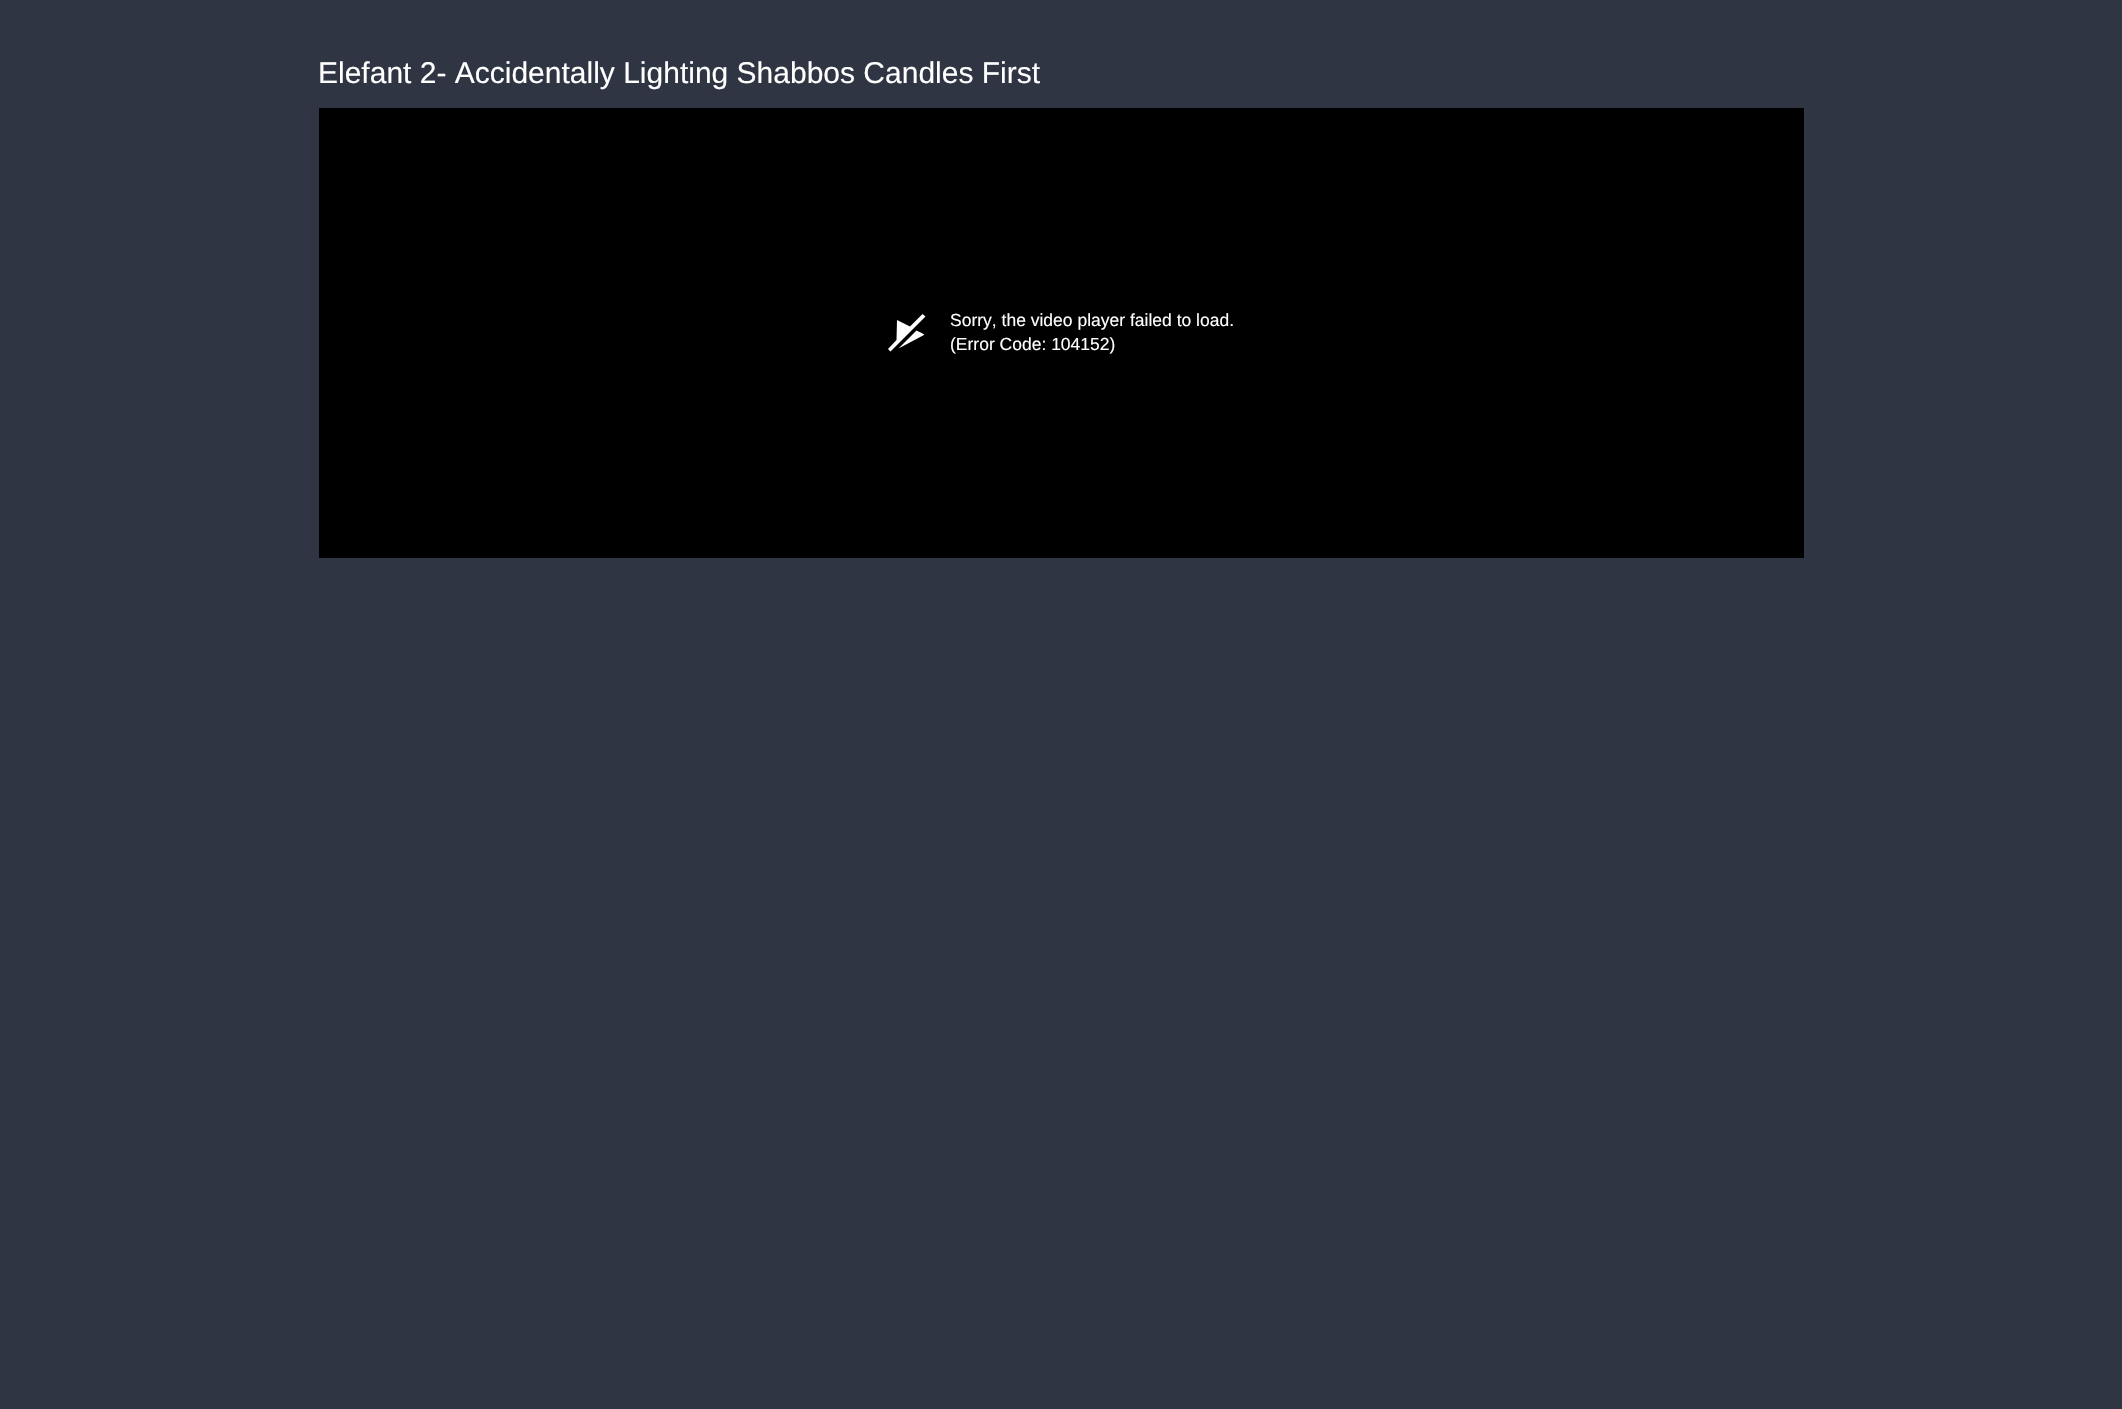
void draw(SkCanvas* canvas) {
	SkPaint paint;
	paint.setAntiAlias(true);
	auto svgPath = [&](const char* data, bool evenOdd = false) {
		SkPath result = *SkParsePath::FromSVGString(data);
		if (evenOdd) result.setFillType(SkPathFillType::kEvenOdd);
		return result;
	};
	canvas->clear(0xff2f3542);
	SkFont f1(fontMgr->matchFamilyStyle("Liberation Sans", SkFontStyle::Normal()), 30);
	f1.setSubpixel(true);
	paint.setColor(0xffffffff);
	canvas->drawString("Elefant 2- Accidentally Lighting Shabbos Candles First", 318, 83, f1, paint);
	paint.setColor(0xff000000);
	canvas->drawRect(SkRect::MakeXYWH(319, 108, 1485, 450), paint);
	paint.setColor(0xffffffff);
	canvas->drawPath(svgPath("M924 335L898.5 348.5L916.5 330.5C923.5 334 925 334.5 924 335ZM922.5 314L910 326.5L897 320L896.5 340L888 349L890.5 351.5L925.5 316.5Z"), paint);
	SkFont f2(fontMgr->matchFamilyStyle("Liberation Sans", SkFontStyle::Normal()), 17.5);
	f2.setSubpixel(true);
	canvas->drawString("Sorry, the video player failed to load.", 950, 326, f2, paint);
	canvas->drawString("(Error Code: 104152)", 950, 350, f2, paint);
}
